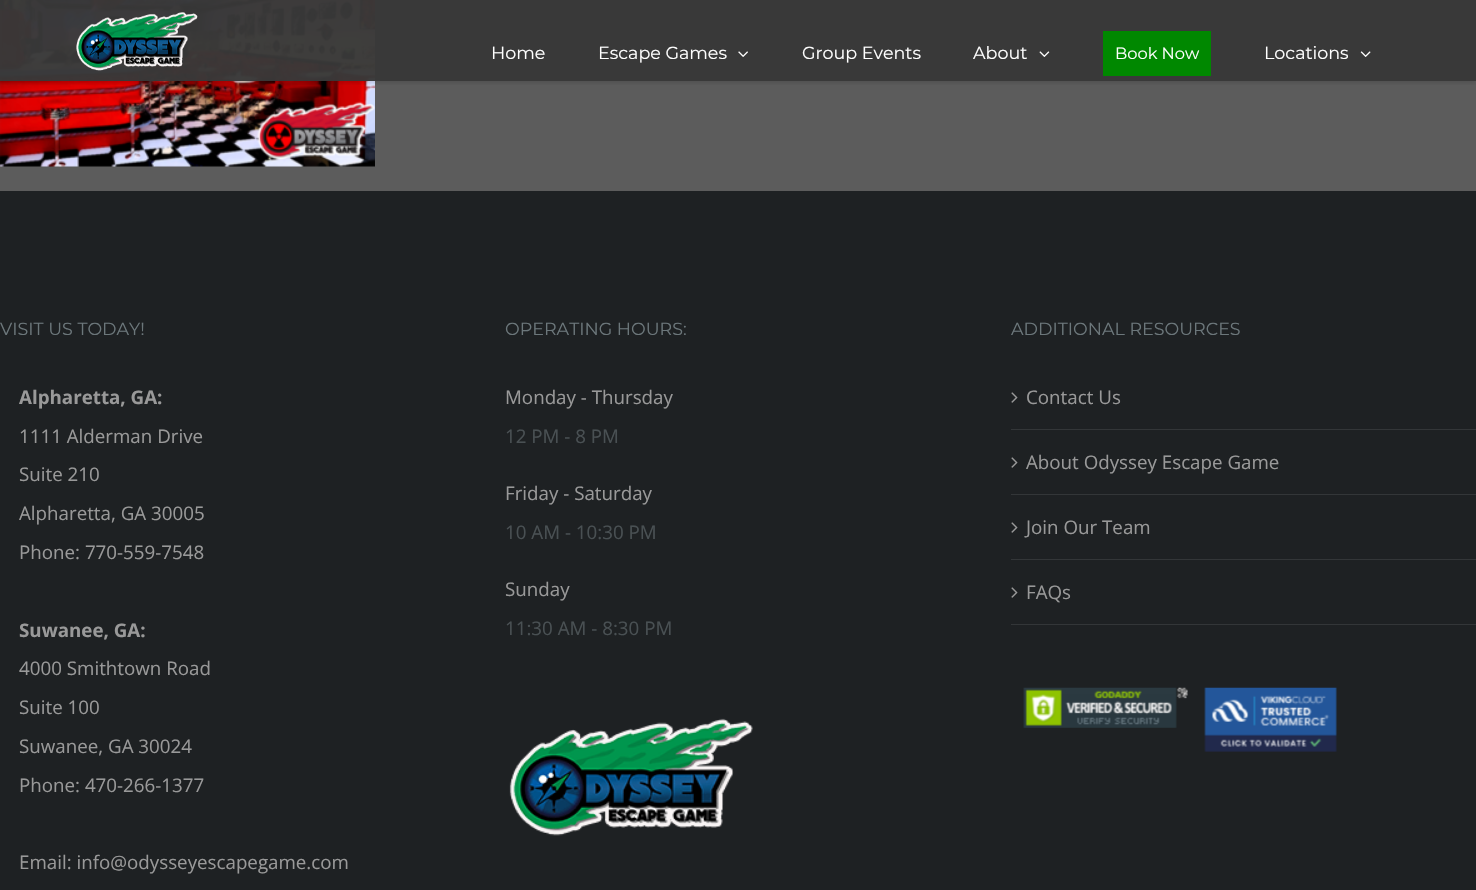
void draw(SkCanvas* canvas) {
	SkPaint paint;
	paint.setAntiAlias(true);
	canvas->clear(0xff5c5c5c);
	canvas->drawImageRect(SkImages::DeferredFromEncodedData(SkData::MakeFromFileName("img1.png")), SkRect::MakeXYWH(0, 0, 375, 167), SkSamplingOptions());
	canvas->save();
	canvas->clipRect(SkRect::MakeXYWH(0, 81, 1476, 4));
	paint.setColor(0x1f000000);
	paint.setMaskFilter(SkMaskFilter::MakeBlur(kNormal_SkBlurStyle, 2));
	canvas->drawRect(SkRect::MakeXYWH(0, 1, 1476, 82), paint);
	paint.setMaskFilter(nullptr);
	canvas->restore();
	paint.setColor(0xf7383838);
	canvas->drawRect(SkRect::MakeXYWH(0, 0, 1476, 81), paint);
	canvas->drawImageRect(SkImages::DeferredFromEncodedData(SkData::MakeFromFileName("img2.png")), SkRect::MakeXYWH(76, 12, 122, 59), SkSamplingOptions());
	SkFont f1(fontMgr->matchFamilyStyle("Montserrat", SkFontStyle::Normal()), 17.5);
	f1.setSubpixel(true);
	paint.setColor(0xffffffff);
	canvas->drawString("Home", 491, 59, f1, paint);
	canvas->drawString("Escape Games", 598, 59, f1, paint);
	canvas->drawImageRect(SkImages::DeferredFromEncodedData(SkData::MakeFromFileName("img3.png")), SkRect::MakeXYWH(738, 51, 10, 6), SkSamplingOptions());
	canvas->drawString("Group Events", 802, 59, f1, paint);
	canvas->drawString("About", 973, 59, f1, paint);
	canvas->drawImageRect(SkImages::DeferredFromEncodedData(SkData::MakeFromFileName("img4.png")), SkRect::MakeXYWH(1039, 51, 11, 6), SkSamplingOptions());
	paint.setColor(0xff008800);
	canvas->drawRect(SkRect::MakeXYWH(1103, 31, 108, 45), paint);
	SkFont f2(fontMgr->matchFamilyStyle("Montserrat", SkFontStyle::Normal()), 16.25);
	f2.setSubpixel(true);
	paint.setColor(0xffffffff);
	canvas->drawString("Book Now", 1115, 59, f2, paint);
	canvas->drawString("Locations", 1264, 59, f1, paint);
	canvas->drawImageRect(SkImages::DeferredFromEncodedData(SkData::MakeFromFileName("img5.png")), SkRect::MakeXYWH(1360, 51, 11, 6), SkSamplingOptions());
	paint.setColor(0xff1e2123);
	canvas->drawRect(SkRect::MakeXYWH(0, 191, 1476, 699), paint);
	paint.setColor(0xff6c777b);
	canvas->drawString("VISIT US TODAY!", 0, 335, f1, paint);
	SkFont f3(fontMgr->matchFamilyStyle("Open Sans", SkFontStyle::Bold()), 18.75);
	f3.setSubpixel(true);
	paint.setColor(0xff999999);
	canvas->drawString("Alpharetta, GA:", 19, 404, f3, paint);
	SkFont f4(fontMgr->matchFamilyStyle("Open Sans", SkFontStyle::Normal()), 18.75);
	f4.setSubpixel(true);
	canvas->drawString("1111 Alderman Drive", 19, 443, f4, paint);
	canvas->drawString("Suite 210", 19, 481, f4, paint);
	canvas->drawString("Alpharetta, GA 30005", 19, 520, f4, paint);
	canvas->drawString("Phone: 770-559-7548", 19, 559, f4, paint);
	canvas->drawString("Suwanee, GA:", 19, 637, f3, paint);
	canvas->drawString("4000 Smithtown Road", 19, 675, f4, paint);
	canvas->drawString("Suite 100", 19, 714, f4, paint);
	canvas->drawString("Suwanee, GA 30024", 19, 753, f4, paint);
	canvas->drawString("Phone: 470-266-1377", 19, 792, f4, paint);
	canvas->drawString("Email: info@odysseyescapegame.com", 19, 869, f4, paint);
	paint.setColor(0xff6c777b);
	canvas->drawString("OPERATING HOURS:", 505, 335, f1, paint);
	paint.setColor(0xff999999);
	canvas->drawString("Monday - Thursday", 505, 404, f4, paint);
	paint.setColor(0xff495053);
	canvas->drawString("12 PM - 8 PM", 505, 443, f4, paint);
	paint.setColor(0xff999999);
	canvas->drawString("Friday - Saturday", 505, 500, f4, paint);
	paint.setColor(0xff495053);
	canvas->drawString("10 AM - 10:30 PM", 505, 539, f4, paint);
	paint.setColor(0xff999999);
	canvas->drawString("Sunday", 505, 596, f4, paint);
	paint.setColor(0xff495053);
	canvas->drawString("11:30 AM - 8:30 PM", 505, 635, f4, paint);
	canvas->drawImageRect(SkImages::DeferredFromEncodedData(SkData::MakeFromFileName("img6.png")), SkRect::MakeXYWH(509, 718, 244, 118), SkSamplingOptions());
	paint.setColor(0xff6c777b);
	canvas->drawString("ADDITIONAL RESOURCES", 1011, 335, f1, paint);
	paint.setColor(0xff333638);
	canvas->drawRect(SkRect::MakeXYWH(1011, 429, 465, 1), paint);
	canvas->drawImageRect(SkImages::DeferredFromEncodedData(SkData::MakeFromFileName("img7.png")), SkRect::MakeXYWH(1011, 392, 7, 11), SkSamplingOptions());
	paint.setColor(0xff999999);
	canvas->drawString("Contact Us", 1026, 404, f4, paint);
	paint.setColor(0xff333638);
	canvas->drawRect(SkRect::MakeXYWH(1011, 494, 465, 1), paint);
	canvas->drawImageRect(SkImages::DeferredFromEncodedData(SkData::MakeFromFileName("img7.png")), SkRect::MakeXYWH(1011, 457, 7, 11), SkSamplingOptions());
	paint.setColor(0xff999999);
	canvas->drawString("About Odyssey Escape Game", 1026, 469, f4, paint);
	paint.setColor(0xff333638);
	canvas->drawRect(SkRect::MakeXYWH(1011, 559, 465, 1), paint);
	canvas->drawImageRect(SkImages::DeferredFromEncodedData(SkData::MakeFromFileName("img7.png")), SkRect::MakeXYWH(1011, 522, 7, 11), SkSamplingOptions());
	paint.setColor(0xff999999);
	canvas->drawString("Join Our Team", 1026, 534, f4, paint);
	paint.setColor(0xff333638);
	canvas->drawRect(SkRect::MakeXYWH(1011, 624, 465, 1), paint);
	canvas->drawImageRect(SkImages::DeferredFromEncodedData(SkData::MakeFromFileName("img7.png")), SkRect::MakeXYWH(1011, 587, 7, 11), SkSamplingOptions());
	paint.setColor(0xff999999);
	canvas->drawString("FAQs", 1026, 599, f4, paint);
	canvas->drawImageRect(SkImages::DeferredFromEncodedData(SkData::MakeFromFileName("img8.png")), SkRect::MakeXYWH(1023, 687, 165, 41), SkSamplingOptions());
	canvas->drawImageRect(SkImages::DeferredFromEncodedData(SkData::MakeFromFileName("img9.png")), SkRect::MakeXYWH(1204, 687, 133, 65), SkSamplingOptions());
}
